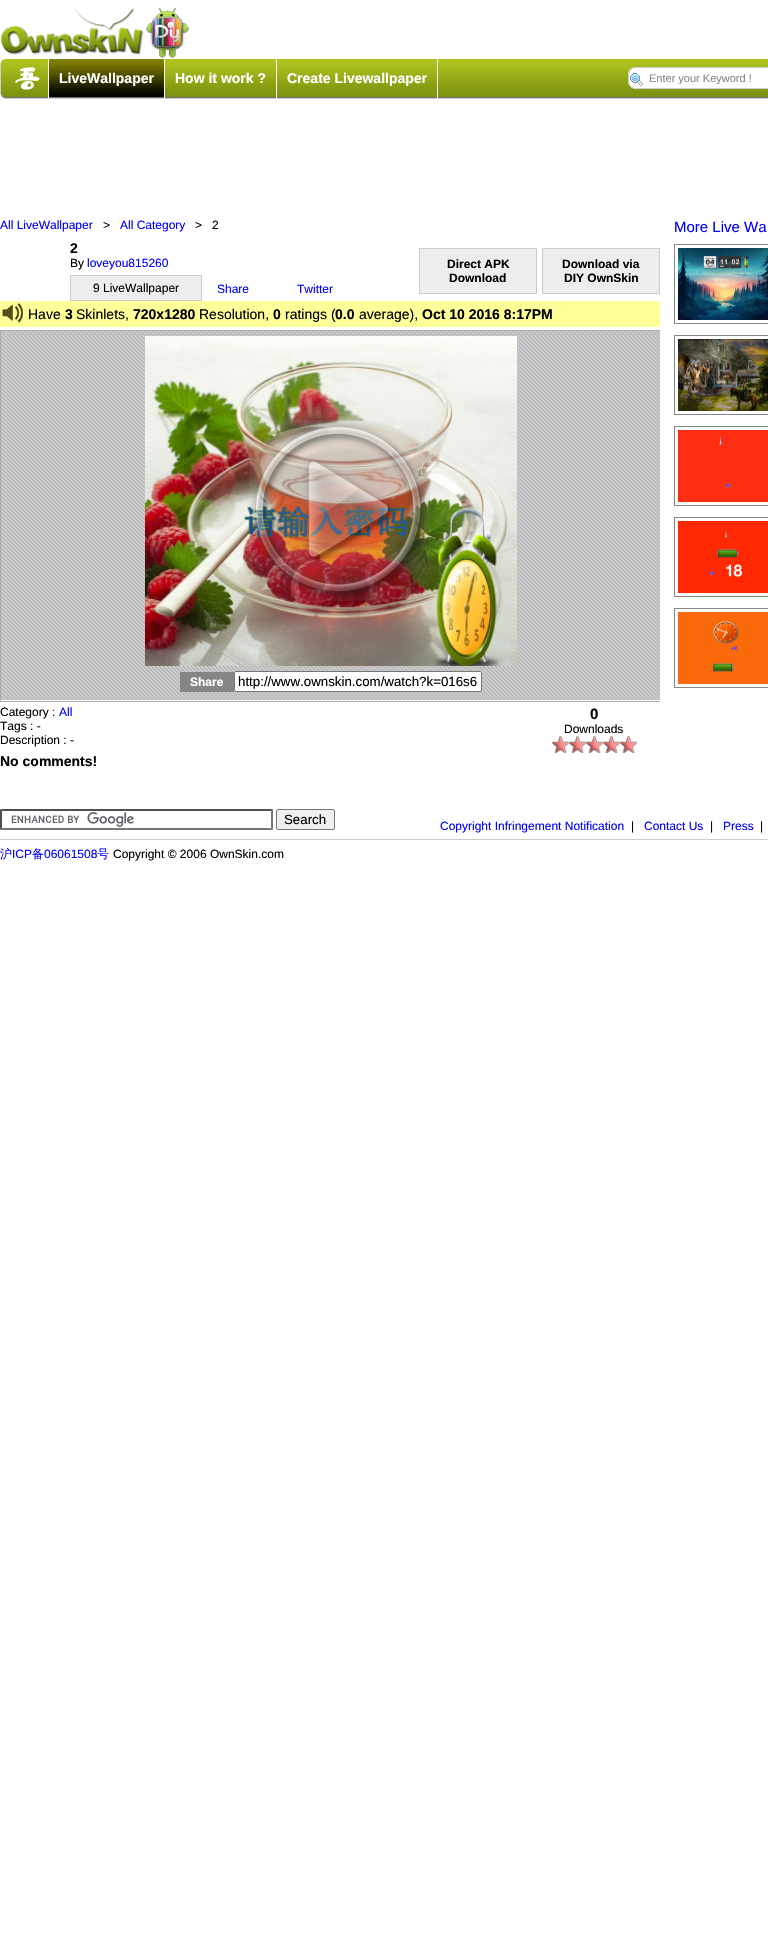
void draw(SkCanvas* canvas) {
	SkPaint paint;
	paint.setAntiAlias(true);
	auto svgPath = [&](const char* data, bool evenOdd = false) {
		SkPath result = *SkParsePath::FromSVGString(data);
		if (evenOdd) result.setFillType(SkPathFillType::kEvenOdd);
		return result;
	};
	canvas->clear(0xffffffff);
	canvas->drawImageRect(SkImages::DeferredFromEncodedData(SkData::MakeFromFileName("img1.png")), SkRect::MakeXYWH(1, 8, 188, 50), SkSamplingOptions());
	canvas->drawImageRect(SkImages::DeferredFromEncodedData(SkData::MakeFromFileName("img2.png")), SkRect::MakeXYWH(0, 59, 7, 40), SkSamplingOptions());
	canvas->drawImageRect(SkImages::DeferredFromEncodedData(SkData::MakeFromFileName("img3.png")), SkRect::MakeXYWH(7, 59, 761, 40), SkSamplingOptions());
	paint.setColor(0xffffffff);
	canvas->drawRect(SkRect::MakeXYWH(48, 59, 1, 39), paint);
	canvas->drawImageRect(SkImages::DeferredFromEncodedData(SkData::MakeFromFileName("img4.png")), SkRect::MakeXYWH(15, 67, 25, 23), SkSamplingOptions());
	canvas->drawRect(SkRect::MakeXYWH(164, 59, 1, 40), paint);
	canvas->drawImageRect(SkImages::DeferredFromEncodedData(SkData::MakeFromFileName("img5.png")), SkRect::MakeXYWH(49, 59, 115, 38), SkSamplingOptions());
	SkFont f1(fontMgr->matchFamilyStyle("Liberation Sans", SkFontStyle::Bold()), 14);
	f1.setSubpixel(true);
	canvas->drawString("LiveWallpaper", 59, 83, f1, paint);
	canvas->drawRect(SkRect::MakeXYWH(276, 59, 1, 40), paint);
	canvas->drawString("How it work ?", 175, 83, f1, paint);
	canvas->drawRect(SkRect::MakeXYWH(437, 59, 1, 40), paint);
	canvas->drawString("Create Livewallpaper", 287, 83, f1, paint);
	canvas->drawRoundRect(SkRect::MakeXYWH(628, 67, 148, 22), 8, 8, paint);
	canvas->drawImageRect(SkImages::DeferredFromEncodedData(SkData::MakeFromFileName("img6.png")), SkRect::MakeXYWH(630, 73, 13, 13), SkSamplingOptions());
	paint.setStroke(true);
	paint.setStrokeWidth(1);
	paint.setColor(0xffcccccc);
	canvas->drawRoundRect(SkRect::MakeXYWH(628.5, 67.5, 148, 21), 7.5, 7.5, paint);
	canvas->save();
	canvas->clipRect(SkRect::MakeXYWH(649, 72, 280, 12));
	SkFont f2(fontMgr->matchFamilyStyle("Liberation Sans", SkFontStyle::Normal()), 11);
	f2.setSubpixel(true);
	paint.setStroke(false);
	paint.setColor(0xff888888);
	canvas->drawString("Enter your Keyword !", 649, 82, f2, paint);
	canvas->restore();
	SkFont f3(fontMgr->matchFamilyStyle("Liberation Sans", SkFontStyle::Normal()), 12);
	f3.setSubpixel(true);
	paint.setColor(0xff0000ff);
	canvas->drawString("All LiveWallpaper", 0, 229, f3, paint);
	paint.setColor(0xff000000);
	canvas->drawString(">", 103, 229, f3, paint);
	paint.setColor(0xff0000ff);
	canvas->drawString("All Category", 120, 229, f3, paint);
	paint.setColor(0xff000000);
	canvas->drawString(">   2", 195, 229, f3, paint);
	canvas->drawString("2", 70, 253, f1, paint);
	canvas->drawString("By", 70, 267, f3, paint);
	paint.setColor(0xff0000ff);
	canvas->drawString("loveyou815260", 87, 267, f3, paint);
	paint.setColor(0xffededed);
	canvas->drawRect(SkRect::MakeXYWH(70.5, 275.5, 131, 25), paint);
	paint.setStroke(true);
	paint.setColor(0xffcccccc);
	canvas->drawRect(SkRect::MakeXYWH(70.5, 275.5, 131, 25), paint);
	paint.setStroke(false);
	paint.setColor(0xff000000);
	canvas->drawString("9 LiveWallpaper", 93, 292, f3, paint);
	paint.setColor(0xffededed);
	canvas->drawRect(SkRect::MakeXYWH(419.5, 248.5, 117, 45), paint);
	paint.setStroke(true);
	paint.setColor(0xffcccccc);
	canvas->drawRect(SkRect::MakeXYWH(419.5, 248.5, 117, 45), paint);
	SkFont f4(fontMgr->matchFamilyStyle("Liberation Sans", SkFontStyle::Bold()), 12);
	f4.setSubpixel(true);
	paint.setStroke(false);
	paint.setColor(0xff000000);
	canvas->drawString("Direct APK", 447, 268, f4, paint);
	canvas->drawString("Download", 449, 282, f4, paint);
	paint.setColor(0xffededed);
	canvas->drawRect(SkRect::MakeXYWH(542.5, 248.5, 117, 45), paint);
	paint.setStroke(true);
	paint.setColor(0xffcccccc);
	canvas->drawRect(SkRect::MakeXYWH(542.5, 248.5, 117, 45), paint);
	paint.setStroke(false);
	paint.setColor(0xff000000);
	canvas->drawString("Download via", 562, 268, f4, paint);
	canvas->drawString("DIY OwnSkin", 564, 282, f4, paint);
	paint.setColor(0xff0000ff);
	canvas->drawString("Share", 217, 293, f3, paint);
	canvas->drawString("Twitter", 297, 293, f3, paint);
	paint.setColor(0xffffff99);
	canvas->drawRect(SkRect::MakeXYWH(0, 301, 660, 26), paint);
	canvas->drawImageRect(SkImages::DeferredFromEncodedData(SkData::MakeFromFileName("img7.png")), SkRect::MakeXYWH(2, 303, 21, 20), SkSamplingOptions());
	SkFont f5(fontMgr->matchFamilyStyle("Liberation Sans", SkFontStyle::Normal()), 14);
	f5.setSubpixel(true);
	paint.setColor(0xff000000);
	canvas->drawString("Have", 28, 319, f5, paint);
	canvas->drawString("3", 65, 319, f1, paint);
	canvas->drawString("Skinlets,", 76, 319, f5, paint);
	canvas->drawString("720x1280", 133, 319, f1, paint);
	canvas->drawString("Resolution,", 199, 319, f5, paint);
	canvas->drawString("0", 273, 319, f1, paint);
	canvas->drawString("ratings (", 285, 319, f5, paint);
	canvas->drawString("0.0", 335, 319, f1, paint);
	canvas->drawString("average),", 359, 319, f5, paint);
	canvas->drawString("Oct 10 2016 8:17PM", 422, 319, f1, paint);
	canvas->drawImageRect(SkImages::DeferredFromEncodedData(SkData::MakeFromFileName("img8.png")), SkRect::MakeXYWH(1, 331, 659, 369), SkSamplingOptions());
	canvas->save();
	canvas->clipRect(SkRect::MakeXYWH(0, 240, 660, 513));
	paint.setStroke(true);
	paint.setColor(0xffadadad);
	canvas->drawRect(SkRect::MakeXYWH(0.5, 330.5, 661, 371), paint);
	canvas->restore();
	canvas->drawImageRect(SkImages::DeferredFromEncodedData(SkData::MakeFromFileName("img9.png")), SkRect::MakeXYWH(145, 336, 372, 330), SkSamplingOptions());
	canvas->drawImageRect(SkImages::DeferredFromEncodedData(SkData::MakeFromFileName("img10.png")), SkRect::MakeXYWH(249, 420, 181, 181), SkSamplingOptions());
	paint.setStroke(false);
	paint.setColor(0xff858585);
	canvas->drawRect(SkRect::MakeXYWH(180, 672, 54, 20), paint);
	paint.setColor(0xffffffff);
	canvas->drawString("Share", 190, 686, f4, paint);
	canvas->drawRoundRect(SkRect::MakeXYWH(234.5, 671.5, 247, 20), 1.5, 1.5, paint);
	paint.setStroke(true);
	paint.setColor(0xff767676);
	canvas->drawRoundRect(SkRect::MakeXYWH(234.5, 671.5, 247, 20), 1.5, 1.5, paint);
	SkFont f6(fontMgr->matchFamilyStyle("Liberation Sans", SkFontStyle::Normal()), 13.3);
	f6.setSubpixel(true);
	paint.setStroke(false);
	paint.setColor(0xff000000);
	canvas->drawString("http://www.ownskin.com/watch?k=016s6", 238, 686, f6, paint);
	canvas->drawString("Category :", 0, 716, f3, paint);
	paint.setColor(0xff0000ff);
	canvas->drawString("All", 59, 716, f3, paint);
	paint.setColor(0xff000000);
	canvas->drawString("Tags : -", 0, 730, f3, paint);
	canvas->drawString("Description : -", 0, 744, f3, paint);
	SkFont f7(fontMgr->matchFamilyStyle("Liberation Sans", SkFontStyle::Bold()), 15);
	f7.setSubpixel(true);
	canvas->drawString("0", 590, 719, f7, paint);
	canvas->drawString("Downloads", 564, 733, f3, paint);
	canvas->drawImageRect(SkImages::DeferredFromEncodedData(SkData::MakeFromFileName("img11.png")), SkRect::MakeXYWH(552, 736, 17, 17), SkSamplingOptions());
	canvas->drawImageRect(SkImages::DeferredFromEncodedData(SkData::MakeFromFileName("img11.png")), SkRect::MakeXYWH(569, 736, 17, 17), SkSamplingOptions());
	canvas->drawImageRect(SkImages::DeferredFromEncodedData(SkData::MakeFromFileName("img11.png")), SkRect::MakeXYWH(586, 736, 17, 17), SkSamplingOptions());
	canvas->drawImageRect(SkImages::DeferredFromEncodedData(SkData::MakeFromFileName("img11.png")), SkRect::MakeXYWH(603, 736, 17, 17), SkSamplingOptions());
	canvas->drawImageRect(SkImages::DeferredFromEncodedData(SkData::MakeFromFileName("img11.png")), SkRect::MakeXYWH(620, 736, 17, 17), SkSamplingOptions());
	SkFont f8(fontMgr->matchFamilyStyle("Liberation Sans", SkFontStyle::Normal()), 15);
	f8.setSubpixel(true);
	paint.setColor(0xff0000ff);
	canvas->drawString("More Live Wa", 674, 232, f8, paint);
	paint.setStroke(true);
	paint.setColor(0xff858585);
	canvas->drawRect(SkRect::MakeXYWH(674.5, 244.5, 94, 79), paint);
	canvas->drawImageRect(SkImages::DeferredFromEncodedData(SkData::MakeFromFileName("img12.png")), SkRect::MakeXYWH(678, 248, 90, 72), SkSamplingOptions());
	canvas->drawRect(SkRect::MakeXYWH(674.5, 335.5, 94, 79), paint);
	canvas->drawImageRect(SkImages::DeferredFromEncodedData(SkData::MakeFromFileName("img13.png")), SkRect::MakeXYWH(678, 339, 90, 72), SkSamplingOptions());
	canvas->drawRect(SkRect::MakeXYWH(674.5, 426.5, 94, 79), paint);
	canvas->drawImageRect(SkImages::DeferredFromEncodedData(SkData::MakeFromFileName("img14.png")), SkRect::MakeXYWH(678, 430, 90, 72), SkSamplingOptions());
	canvas->drawRect(SkRect::MakeXYWH(674.5, 517.5, 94, 79), paint);
	canvas->drawImageRect(SkImages::DeferredFromEncodedData(SkData::MakeFromFileName("img15.png")), SkRect::MakeXYWH(678, 521, 90, 72), SkSamplingOptions());
	canvas->drawRect(SkRect::MakeXYWH(674.5, 608.5, 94, 79), paint);
	canvas->drawImageRect(SkImages::DeferredFromEncodedData(SkData::MakeFromFileName("img16.png")), SkRect::MakeXYWH(678, 612, 90, 72), SkSamplingOptions());
	paint.setStroke(false);
	paint.setColor(0xff000000);
	canvas->drawString("No comments!", 0, 766, f1, paint);
	canvas->drawImageRect(SkImages::DeferredFromEncodedData(SkData::MakeFromFileName("img17.png")), SkRect::MakeXYWH(11, 812, 123, 15), SkSamplingOptions());
	paint.setColor(0xff4f4f4f);
	canvas->drawPath(svgPath("M0 809H273L271 811H2Z"), paint);
	paint.setColor(0xff767676);
	canvas->drawPath(svgPath("M273 809V830L271 828V811Z"), paint);
	canvas->drawPath(svgPath("M273 830H0L2 828H271Z"), paint);
	paint.setColor(0xff4f4f4f);
	canvas->drawPath(svgPath("M0 830V809L2 811V828Z"), paint);
	paint.setColor(0xffefefef);
	canvas->drawRoundRect(SkRect::MakeXYWH(276.5, 809.5, 58, 20), 1.5, 1.5, paint);
	paint.setStroke(true);
	paint.setColor(0xff767676);
	canvas->drawRoundRect(SkRect::MakeXYWH(276.5, 809.5, 58, 20), 1.5, 1.5, paint);
	paint.setStroke(false);
	paint.setColor(0xff000000);
	canvas->drawString("Search", 284, 824, f6, paint);
	paint.setColor(0xffcccccc);
	canvas->drawRect(SkRect::MakeXYWH(0, 839, 768, 1), paint);
	paint.setColor(0xff0000ff);
	canvas->drawString("Copyright Infringement Notification", 440, 830, f3, paint);
	paint.setColor(0xff000000);
	canvas->drawString("|", 631, 830, f3, paint);
	paint.setColor(0xff0000ff);
	canvas->drawString("Contact Us", 644, 830, f3, paint);
	paint.setColor(0xff000000);
	canvas->drawString("|", 710, 830, f3, paint);
	paint.setColor(0xff0000ff);
	canvas->drawString("Press", 723, 830, f3, paint);
	paint.setColor(0xff000000);
	canvas->drawString("|", 760, 830, f3, paint);
	SkFont f9(fontMgr->matchFamilyStyle("WenQuanYi Zen Hei", SkFontStyle(500, SkFontStyle::kNormal_Width, SkFontStyle::kUpright_Slant)), 12);
	f9.setSubpixel(true);
	paint.setColor(0xff0000ff);
	canvas->drawString("沪", 0, 858, f9, paint);
	canvas->drawString("ICP", 12, 858, f3, paint);
	canvas->drawString("备", 32, 858, f9, paint);
	canvas->drawString("06061508", 44, 858, f3, paint);
	canvas->drawString("号", 97, 858, f9, paint);
	paint.setColor(0xff000000);
	canvas->drawString("Copyright © 2006 OwnSkin.com", 113, 858, f3, paint);
}
